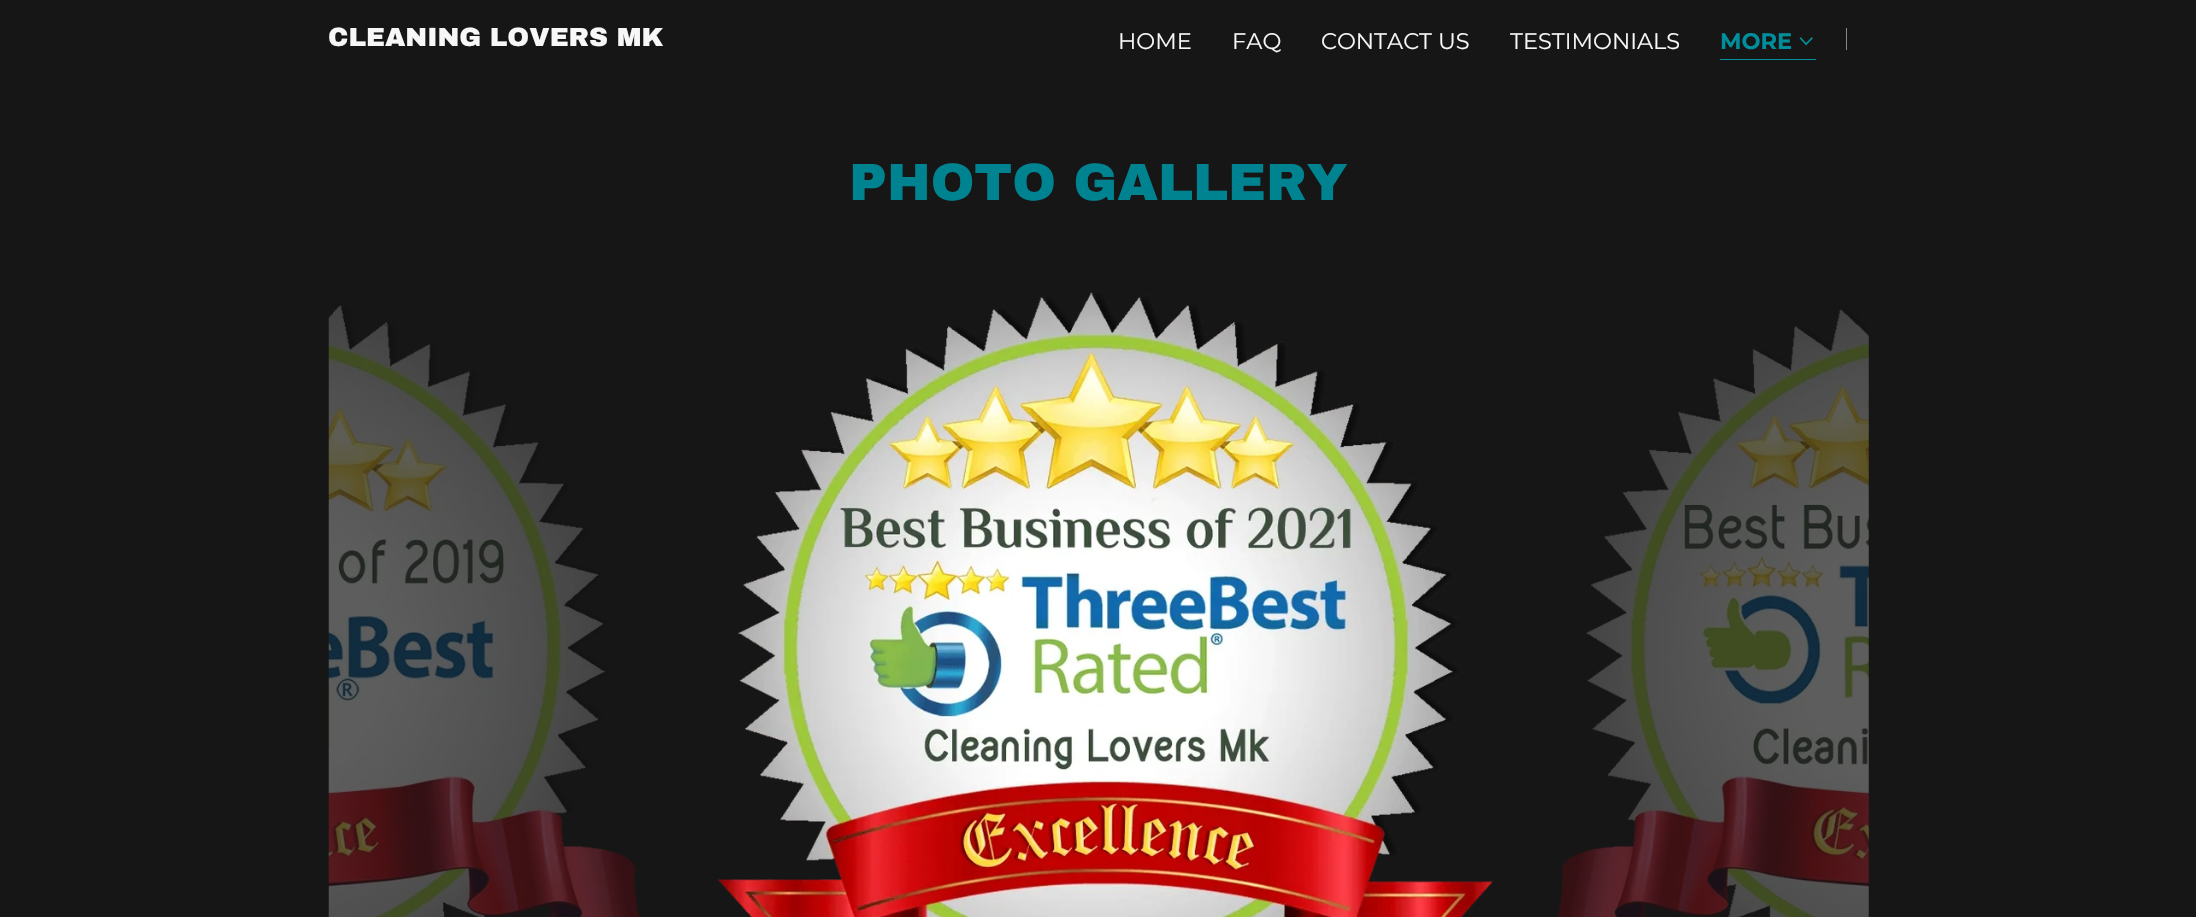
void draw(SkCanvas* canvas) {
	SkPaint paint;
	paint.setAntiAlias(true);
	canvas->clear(0xff161616);
	SkFont f1(fontMgr->matchFamilyStyle("Archivo Black", SkFontStyle(900, SkFontStyle::kNormal_Width, SkFontStyle::kUpright_Slant)), 26.25);
	f1.setSubpixel(true);
	paint.setColor(0xfff7f7f7);
	canvas->drawString("CLEANING LOVERS MK", 328, 46, f1, paint);
	SkFont f2(fontMgr->matchFamilyStyle("Montserrat", SkFontStyle::Normal()), 22.5);
	f2.setSubpixel(true);
	canvas->drawString("HOME", 1118, 49, f2, paint);
	canvas->drawString("FAQ", 1232, 49, f2, paint);
	canvas->drawString("CONTACT US", 1321, 49, f2, paint);
	canvas->drawString("TESTIMONIALS", 1510, 49, f2, paint);
	paint.setColor(0xff008e9c);
	canvas->drawRect(SkRect::MakeXYWH(1720, 59, 96, 1), paint);
	SkFont f3(fontMgr->matchFamilyStyle("Montserrat", SkFontStyle::Bold()), 22.5);
	f3.setSubpixel(true);
	canvas->drawString("MORE", 1720, 49, f3, paint);
	canvas->drawImageRect(SkImages::DeferredFromEncodedData(SkData::MakeFromFileName("img1.png")), SkRect::MakeXYWH(1799, 37, 14, 9), SkSamplingOptions());
	paint.setColor(0xff898989);
	canvas->drawRect(SkRect::MakeXYWH(1846, 28, 1, 22), paint);
	SkFont f4(fontMgr->matchFamilyStyle("Archivo Black", SkFontStyle(900, SkFontStyle::kNormal_Width, SkFontStyle::kUpright_Slant)), 52.5);
	f4.setSubpixel(true);
	paint.setColor(0xff008390);
	canvas->drawString("PHOTO GALLERY", 849, 200, f4, paint);
	canvas->drawImageRect(SkImages::DeferredFromEncodedData(SkData::MakeFromFileName("img2.png")), SkRect::MakeXYWH(328, 305, 312, 612), SkSamplingOptions());
	canvas->drawImageRect(SkImages::DeferredFromEncodedData(SkData::MakeFromFileName("img3.png")), SkRect::MakeXYWH(718, 292, 775, 625), SkSamplingOptions());
	canvas->drawImageRect(SkImages::DeferredFromEncodedData(SkData::MakeFromFileName("img4.png")), SkRect::MakeXYWH(1557, 309, 312, 608), SkSamplingOptions());
}
